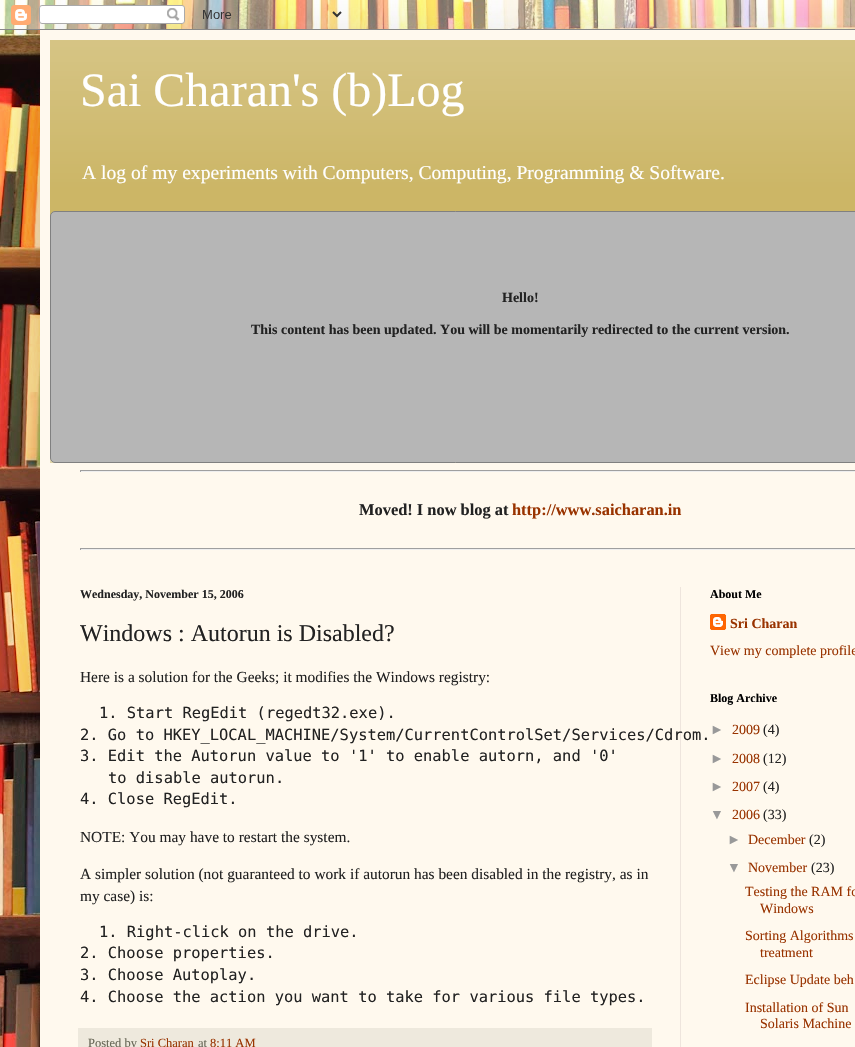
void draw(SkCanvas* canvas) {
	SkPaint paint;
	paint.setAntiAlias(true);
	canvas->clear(0xffffffff);
	canvas->drawImageRect(SkImages::DeferredFromEncodedData(SkData::MakeFromFileName("img1.png")), SkRect::MakeXYWH(0, 0, 40, 1047), SkSamplingOptions());
	canvas->drawImageRect(SkImages::DeferredFromEncodedData(SkData::MakeFromFileName("img2.png")), SkRect::MakeXYWH(40, 0, 815, 29), SkSamplingOptions());
	paint.setColor(0x26000000);
	paint.setMaskFilter(SkMaskFilter::MakeBlur(kNormal_SkBlurStyle, 20));
	canvas->drawRect(SkRect::MakeXYWH(40, 30, 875, 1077), paint);
	paint.setMaskFilter(nullptr);
	canvas->drawImageRect(SkImages::DeferredFromEncodedData(SkData::MakeFromFileName("img3.png")), SkRect::MakeXYWH(0, 0, 855, 30), SkSamplingOptions());
	paint.setColor(0xfffff9ee);
	canvas->drawRect(SkRect::MakeXYWH(40, 30, 815, 1017), paint);
	paint.setColor(0xffccb666);
	canvas->drawRect(SkRect::MakeXYWH(50, 40, 805, 423), paint);
	canvas->drawImageRect(SkImages::DeferredFromEncodedData(SkData::MakeFromFileName("img4.png")), SkRect::MakeXYWH(50, 40, 805, 423), SkSamplingOptions());
	SkFont f1(fontMgr->matchFamilyStyle("Liberation Serif", SkFontStyle::Normal()), 48);
	f1.setSubpixel(true);
	paint.setColor(0xffffffff);
	canvas->drawString("Sai Charan's (b)Log", 80, 106, f1, paint);
	SkFont f2(fontMgr->matchFamilyStyle("Liberation Serif", SkFontStyle::Normal()), 19.6);
	f2.setSubpixel(true);
	canvas->drawString("A log of my experiments with Computers, Computing, Programming & Software.", 82, 179, f2, paint);
	paint.setColor(0xffb6b6b6);
	canvas->drawRoundRect(SkRect::MakeXYWH(50.5, 211.5, 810, 251), 4.5, 4.5, paint);
	paint.setStroke(true);
	paint.setStrokeWidth(1);
	paint.setColor(0xff808080);
	canvas->drawRoundRect(SkRect::MakeXYWH(50.5, 211.5, 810, 251), 4.5, 4.5, paint);
	SkFont f3(fontMgr->matchFamilyStyle("Liberation Serif", SkFontStyle::Bold()), 14);
	f3.setSubpixel(true);
	paint.setStroke(false);
	paint.setColor(0xff222222);
	canvas->drawString("Hello!", 502, 302, f3, paint);
	canvas->drawString("This content has been updated. You will be momentarily redirected to the current version.", 251, 334, f3, paint);
	paint.setColor(0xff9f9f9f);
	canvas->drawRect(SkRect::MakeXYWH(80, 470, 775, 1), paint);
	paint.setColor(0xffeeeeee);
	canvas->drawRect(SkRect::MakeXYWH(80, 471, 775, 1), paint);
	paint.setColor(0xff9f9f9f);
	canvas->drawRect(SkRect::MakeXYWH(80, 470, 1, 2), paint);
	SkFont f4(fontMgr->matchFamilyStyle("Liberation Serif", SkFontStyle::Bold()), 16.4);
	f4.setSubpixel(true);
	paint.setColor(0xff222222);
	canvas->drawString("Moved! I now blog at", 359, 515, f4, paint);
	paint.setColor(0xff993300);
	canvas->drawString("http://www.saicharan.in", 512, 515, f4, paint);
	paint.setColor(0xff9f9f9f);
	canvas->drawRect(SkRect::MakeXYWH(80, 548, 775, 1), paint);
	paint.setColor(0xffeeeeee);
	canvas->drawRect(SkRect::MakeXYWH(80, 549, 775, 1), paint);
	paint.setColor(0xff9f9f9f);
	canvas->drawRect(SkRect::MakeXYWH(80, 548, 1, 2), paint);
	paint.setColor(0xffeee5dd);
	canvas->drawRect(SkRect::MakeXYWH(680, 587, 1, 460), paint);
	SkFont f5(fontMgr->matchFamilyStyle("Liberation Serif", SkFontStyle::Bold()), 12);
	f5.setSubpixel(true);
	paint.setColor(0xff222222);
	canvas->drawString("Wednesday, November 15, 2006", 80, 598, f5, paint);
	SkFont f6(fontMgr->matchFamilyStyle("Liberation Serif", SkFontStyle::Normal()), 24);
	f6.setSubpixel(true);
	canvas->drawString("Windows : Autorun is Disabled?", 80, 641, f6, paint);
	SkFont f7(fontMgr->matchFamilyStyle("Liberation Serif", SkFontStyle::Normal()), 15.4);
	f7.setSubpixel(true);
	canvas->drawString("Here is a solution for the Geeks; it modifies the Windows registry:", 80, 682, f7, paint);
	SkFont f8(fontMgr->matchFamilyStyle("DejaVu Sans Mono", SkFontStyle::Normal()), 15.4);
	f8.setSubpixel(true);
	canvas->drawString("1. Start RegEdit (regedt32.exe).", 99, 718, f8, paint);
	canvas->drawString("2. Go to HKEY_LOCAL_MACHINE/System/CurrentControlSet/Services/Cdrom.", 80, 740, f8, paint);
	canvas->drawString("3. Edit the Autorun value to '1' to enable autorn, and '0'", 80, 761, f8, paint);
	canvas->drawString("to disable autorun.", 108, 783, f8, paint);
	canvas->drawString("4. Close RegEdit.", 80, 804, f8, paint);
	canvas->drawString("NOTE: You may have to restart the system.", 80, 842, f7, paint);
	canvas->drawString("A simpler solution (not guaranteed to work if autorun has been disabled in the registry, as in", 80, 879, f7, paint);
	canvas->drawString("my case) is:", 80, 901, f7, paint);
	canvas->drawString("1. Right-click on the drive.", 99, 937, f8, paint);
	canvas->drawString("2. Choose properties.", 80, 958, f8, paint);
	canvas->drawString("3. Choose Autoplay.", 80, 980, f8, paint);
	canvas->drawString("4. Choose the action you want to take for various file types.", 80, 1002, f8, paint);
	paint.setColor(0xffeee9dd);
	canvas->drawRect(SkRect::MakeXYWH(78, 1028, 574, 19), paint);
	SkFont f9(fontMgr->matchFamilyStyle("Liberation Serif", SkFontStyle::Normal()), 12.5);
	f9.setSubpixel(true);
	paint.setColor(0xff666555);
	canvas->drawString("Posted by", 88, 1047, f9, paint);
	paint.setColor(0xff993300);
	canvas->drawString("Sri Charan", 140, 1047, f9, paint);
	paint.setColor(0xff666555);
	canvas->drawString("at", 198, 1047, f9, paint);
	paint.setColor(0xff993300);
	canvas->drawString("8:11 AM", 210, 1047, f9, paint);
	paint.setColor(0xff000000);
	canvas->drawString("About Me", 710, 598, f5, paint);
	canvas->drawImageRect(SkImages::DeferredFromEncodedData(SkData::MakeFromFileName("img5.png")), SkRect::MakeXYWH(710, 614, 16, 16), SkSamplingOptions());
	paint.setColor(0xff993300);
	canvas->drawString("Sri Charan", 730, 628, f3, paint);
	SkFont f10(fontMgr->matchFamilyStyle("Liberation Serif", SkFontStyle::Normal()), 14);
	f10.setSubpixel(true);
	canvas->drawString("View my complete profile", 710, 655, f10, paint);
	paint.setColor(0xff000000);
	canvas->drawString("Blog Archive", 710, 702, f5, paint);
	SkFont f11(fontMgr->matchFamilyStyle("Liberation Sans", SkFontStyle::Normal()), 14);
	f11.setSubpixel(true);
	paint.setColor(0xff999999);
	canvas->drawString("►", 710, 734, f11, paint);
	paint.setColor(0xff993300);
	canvas->drawString("2009", 732, 734, f10, paint);
	paint.setColor(0xff222222);
	canvas->drawString("(4)", 763, 734, f10, paint);
	paint.setColor(0xff999999);
	canvas->drawString("►", 710, 763, f11, paint);
	paint.setColor(0xff993300);
	canvas->drawString("2008", 732, 763, f10, paint);
	paint.setColor(0xff222222);
	canvas->drawString("(12)", 763, 763, f10, paint);
	paint.setColor(0xff999999);
	canvas->drawString("►", 710, 791, f11, paint);
	paint.setColor(0xff993300);
	canvas->drawString("2007", 732, 791, f10, paint);
	paint.setColor(0xff222222);
	canvas->drawString("(4)", 763, 791, f10, paint);
	paint.setColor(0xff999999);
	canvas->drawString("▼", 710, 819, f11, paint);
	paint.setColor(0xff993300);
	canvas->drawString("2006", 732, 819, f10, paint);
	paint.setColor(0xff222222);
	canvas->drawString("(33)", 763, 819, f10, paint);
	paint.setColor(0xff999999);
	canvas->drawString("►", 727, 844, f11, paint);
	paint.setColor(0xff993300);
	canvas->drawString("December", 748, 844, f10, paint);
	paint.setColor(0xff222222);
	canvas->drawString("(2)", 809, 844, f10, paint);
	paint.setColor(0xff999999);
	canvas->drawString("▼", 727, 872, f11, paint);
	paint.setColor(0xff993300);
	canvas->drawString("November", 748, 872, f10, paint);
	paint.setColor(0xff222222);
	canvas->drawString("(23)", 811, 872, f10, paint);
	paint.setColor(0xff993300);
	canvas->drawString("Testing the RAM fo", 745, 896, f10, paint);
	canvas->drawString("Windows", 760, 913, f10, paint);
	canvas->drawString("Sorting Algorithms", 745, 940, f10, paint);
	canvas->drawString("treatment", 760, 957, f10, paint);
	canvas->drawString("Eclipse Update beh", 745, 984, f10, paint);
	canvas->drawString("Installation of Sun", 745, 1012, f10, paint);
	canvas->drawString("Solaris Machine", 760, 1028, f10, paint);
}
